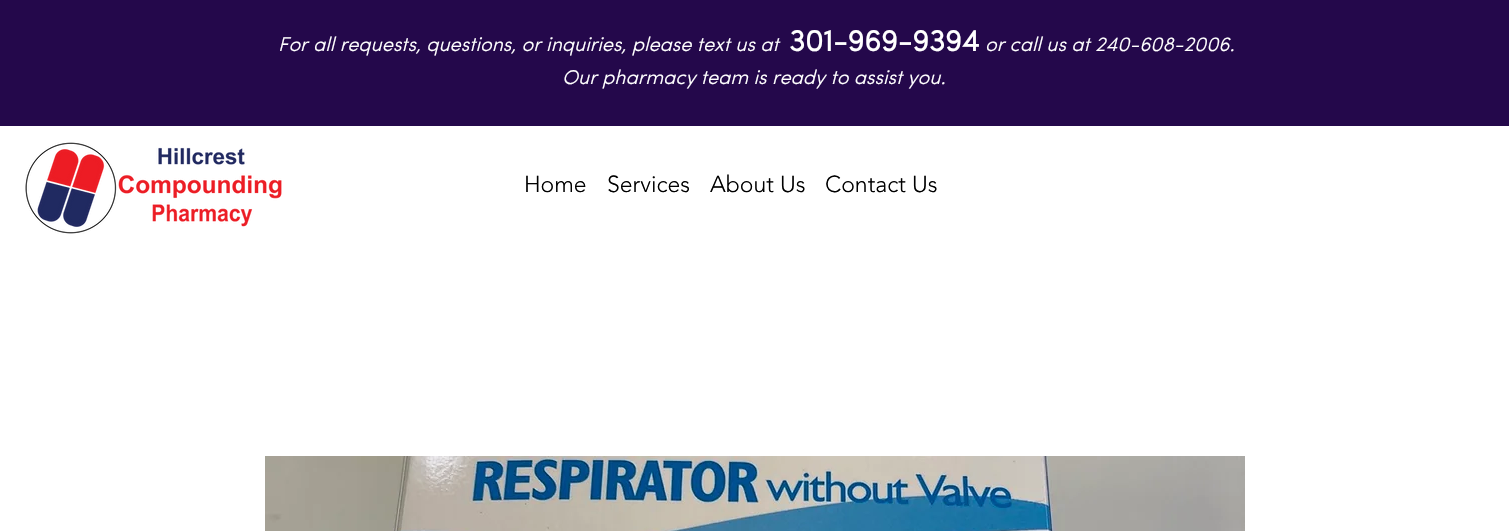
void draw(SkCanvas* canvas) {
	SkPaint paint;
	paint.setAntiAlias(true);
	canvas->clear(0xffffffff);
	paint.setColor(0xff24084b);
	canvas->drawRect(SkRect::MakeXYWH(0, 0, 1509, 126), paint);
	SkFont f1(fontMgr->matchFamilyStyle("Sofia", SkFontStyle(300, SkFontStyle::kNormal_Width, SkFontStyle::kItalic_Slant)), 20);
	f1.setSubpixel(true);
	paint.setColor(0xffffffff);
	canvas->drawString("For all requests, questions, or inquiries, please text us at", 278, 51, f1, paint);
	SkFont f2(fontMgr->matchFamilyStyle("Sofia", SkFontStyle::Bold()), 30);
	f2.setSubpixel(true);
	canvas->drawString("301-969-9394", 789, 51, f2, paint);
	canvas->drawString("or call us at 240-608-2006.", 985, 51, f1, paint);
	canvas->drawString("Our pharmacy team is ready to assist you.", 562, 84, f1, paint);
	canvas->drawImageRect(SkImages::DeferredFromEncodedData(SkData::MakeFromFileName("img1.png")), SkRect::MakeXYWH(25, 142, 257, 92), SkSamplingOptions());
	SkFont f3(fontMgr->matchFamilyStyle("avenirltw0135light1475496", SkFontStyle(300, SkFontStyle::kNormal_Width, SkFontStyle::kUpright_Slant)), 23);
	f3.setSubpixel(true);
	paint.setColor(0xff000000);
	canvas->drawString("Home", 524, 192, f3, paint);
	canvas->drawString("Services", 607, 192, f3, paint);
	canvas->drawString("About Us", 710, 192, f3, paint);
	canvas->drawString("Contact Us", 825, 192, f3, paint);
	canvas->drawImageRect(SkImages::DeferredFromEncodedData(SkData::MakeFromFileName("img2.png")), SkRect::MakeXYWH(265, 456, 980, 75), SkSamplingOptions());
}
